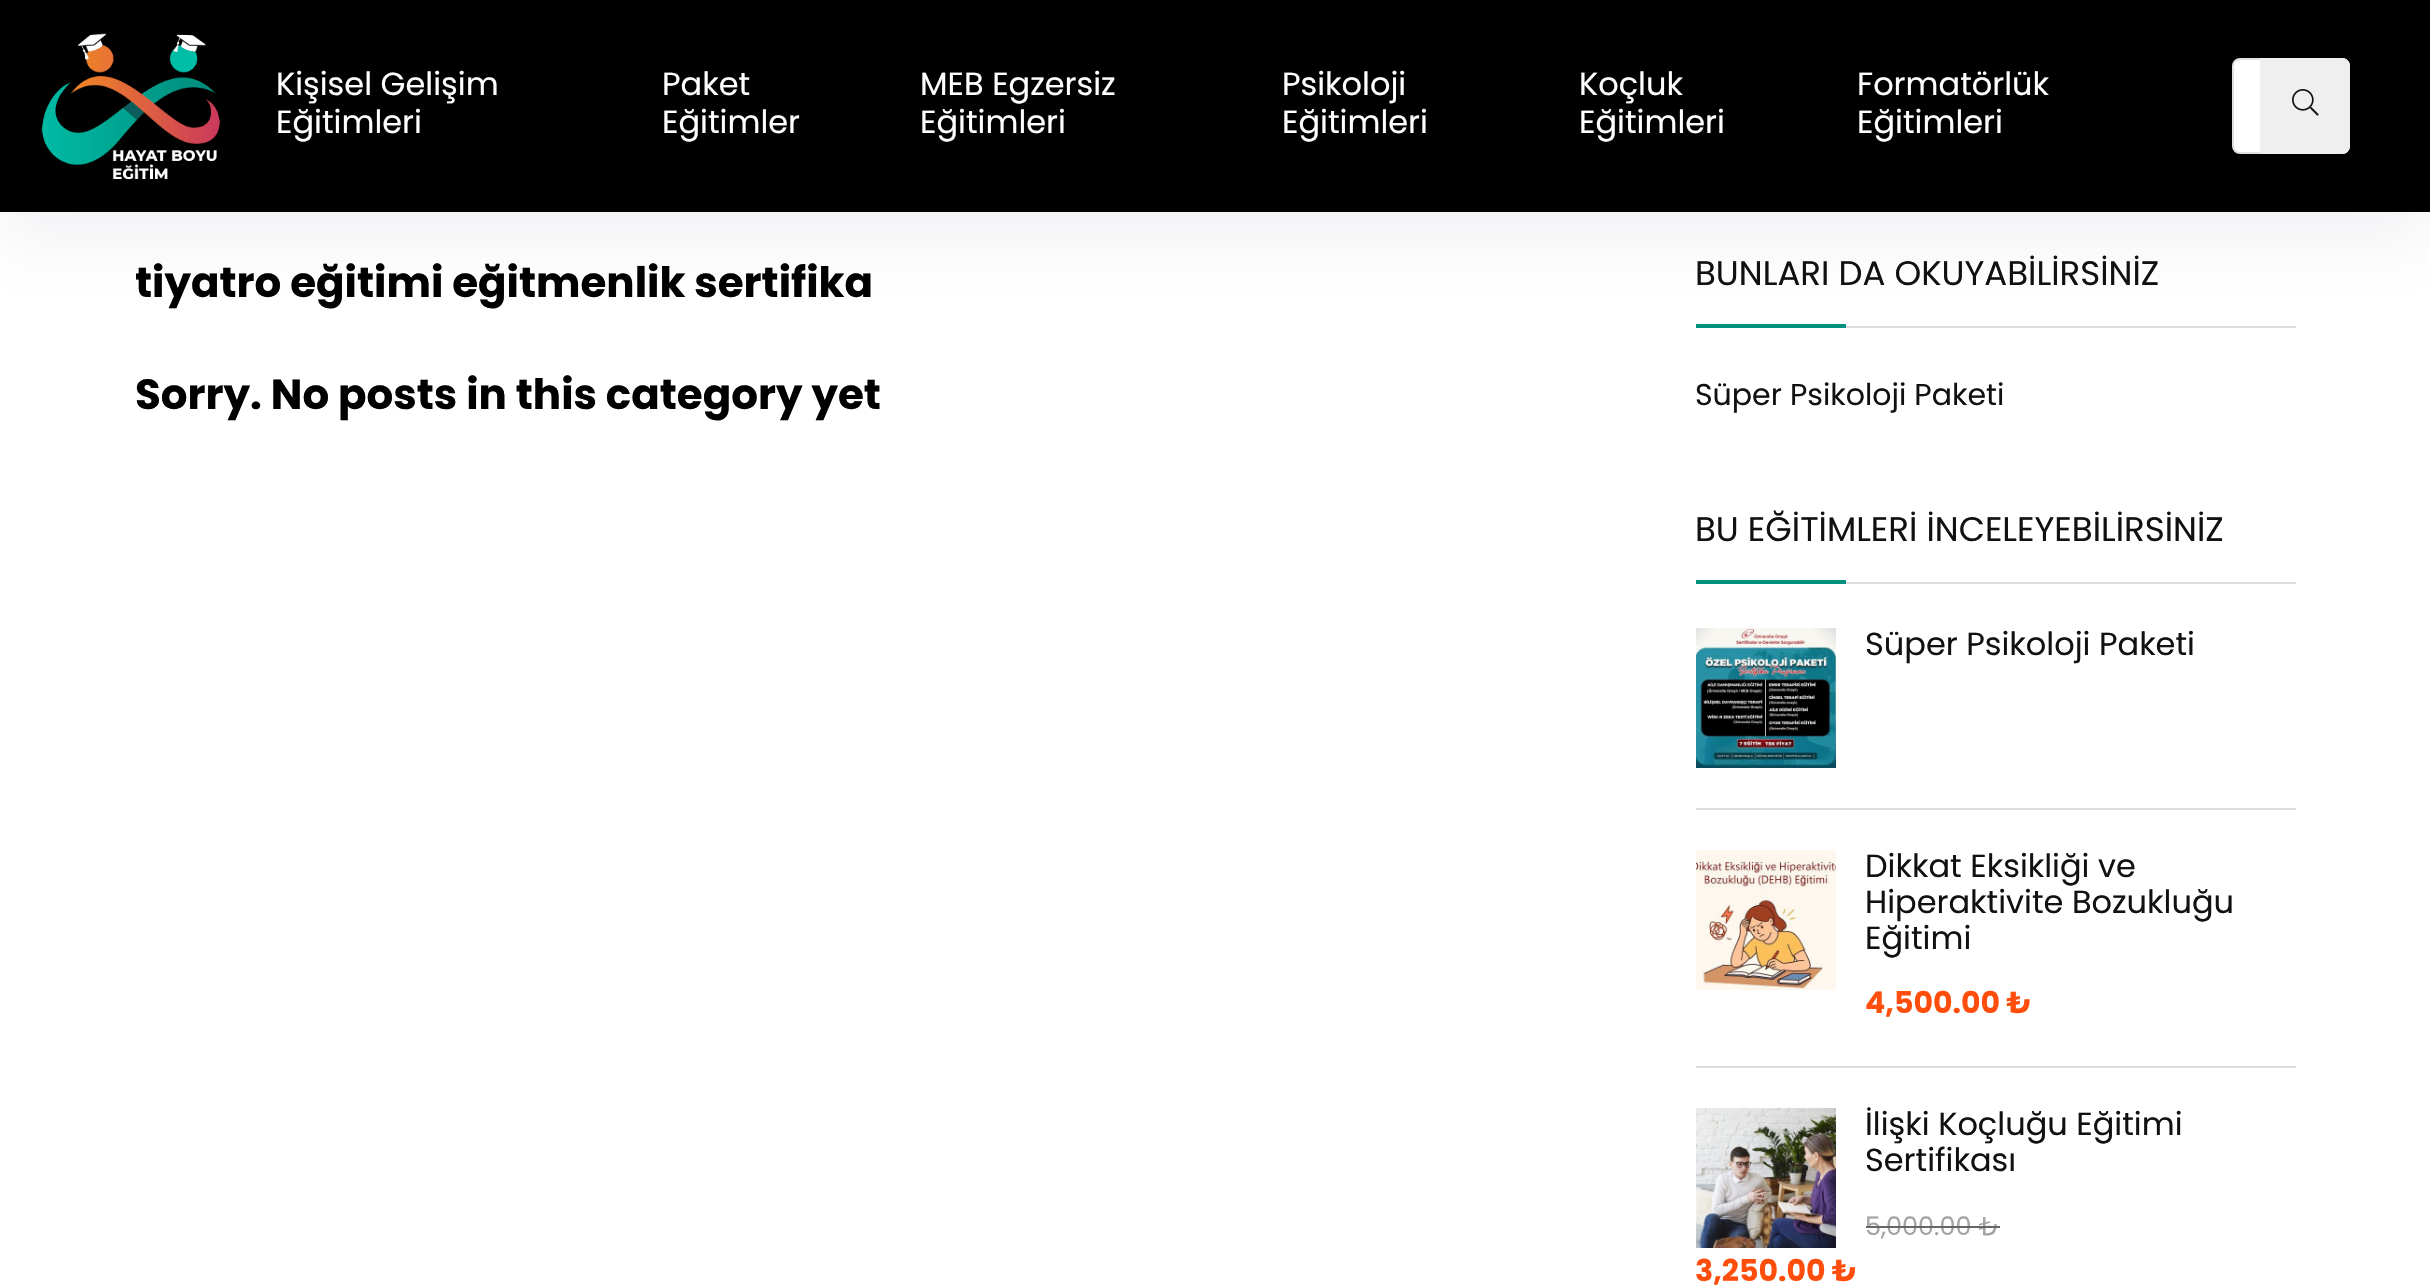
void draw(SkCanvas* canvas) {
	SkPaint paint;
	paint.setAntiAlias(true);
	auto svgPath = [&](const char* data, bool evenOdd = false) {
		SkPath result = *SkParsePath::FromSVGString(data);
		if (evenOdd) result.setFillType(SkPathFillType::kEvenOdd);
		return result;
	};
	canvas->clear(0xffffffff);
	paint.setColor(0xffdddddd);
	canvas->drawRect(SkRect::MakeXYWH(1846, 326, 450, 2), paint);
	paint.setColor(0xff01907e);
	canvas->drawRect(SkRect::MakeXYWH(1696, 324, 150, 4), paint);
	paint.setColor(0x1a777b92);
	paint.setMaskFilter(SkMaskFilter::MakeBlur(kNormal_SkBlurStyle, 30));
	canvas->drawRect(SkRect::MakeXYWH(0, 30, 2430, 212), paint);
	paint.setMaskFilter(nullptr);
	paint.setColor(0xff000000);
	canvas->drawRect(SkRect::MakeXYWH(0, 0, 2430, 212), paint);
	canvas->drawImageRect(SkImages::DeferredFromEncodedData(SkData::MakeFromFileName("img1.png")), SkRect::MakeXYWH(41, 33, 179, 147), SkSamplingOptions());
	SkFont f1(fontMgr->matchFamilyStyle("Poppins", SkFontStyle::Normal()), 32);
	f1.setSubpixel(true);
	paint.setColor(0xffffffff);
	canvas->drawString("Kişisel Gelişim", 276, 95, f1, paint);
	canvas->drawString("Eğitimleri", 276, 133, f1, paint);
	canvas->drawString("Paket", 662, 95, f1, paint);
	canvas->drawString("Eğitimler", 662, 133, f1, paint);
	canvas->drawString("MEB Egzersiz", 920, 95, f1, paint);
	canvas->drawString("Eğitimleri", 920, 133, f1, paint);
	canvas->drawString("Psikoloji", 1282, 95, f1, paint);
	canvas->drawString("Eğitimleri", 1282, 133, f1, paint);
	canvas->drawString("Koçluk", 1579, 95, f1, paint);
	canvas->drawString("Eğitimleri", 1579, 133, f1, paint);
	canvas->drawString("Formatörlük", 1857, 95, f1, paint);
	canvas->drawString("Eğitimleri", 1857, 133, f1, paint);
	canvas->drawRoundRect(SkRect::MakeXYWH(2233, 59, 116, 94), 7, 7, paint);
	paint.setStroke(true);
	paint.setStrokeWidth(2);
	paint.setColor(0xffe1e1e1);
	canvas->drawRoundRect(SkRect::MakeXYWH(2233, 59, 116, 94), 7, 7, paint);
	paint.setStroke(false);
	paint.setColor(0xffefefef);
	canvas->drawPath(svgPath("M2260 58H2342C2346.5 58 2350 61.5 2350 66V146C2350 150.5 2346.5 154 2342 154H2260Z"), paint);
	canvas->drawImageRect(SkImages::DeferredFromEncodedData(SkData::MakeFromFileName("img2.png")), SkRect::MakeXYWH(2292, 89, 27, 27), SkSamplingOptions());
	canvas->save();
	canvas->clipRect(SkRect::MakeXYWH(136, 252, 1510, 62));
	SkFont f2(fontMgr->matchFamilyStyle("Poppins", SkFontStyle::Bold()), 42);
	f2.setSubpixel(true);
	paint.setColor(0xff000000);
	canvas->drawString("tiyatro eğitimi eğitmenlik sertifika", 135, 297, f2, paint);
	canvas->restore();
	canvas->drawString("Sorry. No posts in this category yet", 135, 409, f2, paint);
	SkFont f3(fontMgr->matchFamilyStyle("Poppins", SkFontStyle::Normal()), 34);
	f3.setSubpixel(true);
	paint.setColor(0xff111111);
	canvas->drawString("BUNLARI DA OKUYABİLİRSİNİZ", 1695, 285, f3, paint);
	SkFont f4(fontMgr->matchFamilyStyle("Poppins", SkFontStyle::Normal()), 30);
	f4.setSubpixel(true);
	canvas->drawString("Süper Psikoloji Paketi", 1695, 405, f4, paint);
	paint.setColor(0xffdddddd);
	canvas->drawRect(SkRect::MakeXYWH(1846, 582, 450, 2), paint);
	paint.setColor(0xff111111);
	canvas->drawString("BU EĞİTİMLERİ İNCELEYEBİLİRSİNİZ", 1695, 541, f3, paint);
	paint.setColor(0xff01907e);
	canvas->drawRect(SkRect::MakeXYWH(1696, 580, 150, 4), paint);
	paint.setColor(0xffdddddd);
	canvas->drawRect(SkRect::MakeXYWH(1696, 808, 600, 2), paint);
	canvas->drawImageRect(SkImages::DeferredFromEncodedData(SkData::MakeFromFileName("img3.png")), SkRect::MakeXYWH(1696, 628, 140, 140), SkSamplingOptions());
	paint.setColor(0xff111111);
	canvas->drawString("Süper Psikoloji Paketi", 1865, 655, f1, paint);
	paint.setColor(0xffdddddd);
	canvas->drawRect(SkRect::MakeXYWH(1696, 1066, 600, 2), paint);
	canvas->drawImageRect(SkImages::DeferredFromEncodedData(SkData::MakeFromFileName("img4.png")), SkRect::MakeXYWH(1696, 850, 140, 140), SkSamplingOptions());
	paint.setColor(0xff111111);
	canvas->drawString("Dikkat Eksikliği ve", 1865, 877, f1, paint);
	canvas->drawString("Hiperaktivite Bozukluğu", 1865, 913, f1, paint);
	canvas->drawString("Eğitimi", 1865, 949, f1, paint);
	SkFont f5(fontMgr->matchFamilyStyle("Poppins", SkFontStyle::Bold()), 30);
	f5.setSubpixel(true);
	paint.setColor(0xffff4e0c);
	canvas->drawString("4,500.00 ₺", 1865, 1013, f5, paint);
	canvas->drawImageRect(SkImages::DeferredFromEncodedData(SkData::MakeFromFileName("img5.png")), SkRect::MakeXYWH(1696, 1108, 140, 140), SkSamplingOptions());
	paint.setColor(0xff111111);
	canvas->drawString("İlişki Koçluğu Eğitimi", 1865, 1135, f1, paint);
	canvas->drawString("Sertifikası", 1865, 1171, f1, paint);
	SkFont f6(fontMgr->matchFamilyStyle("Poppins", SkFontStyle::Normal()), 25.5);
	f6.setSubpixel(true);
	paint.setColor(0xffa3a3a3);
	canvas->drawString("5,000.00 ₺", 1865, 1235, f6, paint);
	paint.setColor(0xff666666);
	canvas->drawRect(SkRect::MakeXYWH(1866, 1226, 134, 2), paint);
	paint.setColor(0xffff4e0c);
	canvas->drawString("3,250.00 ₺", 1695, 1281, f5, paint);
}
